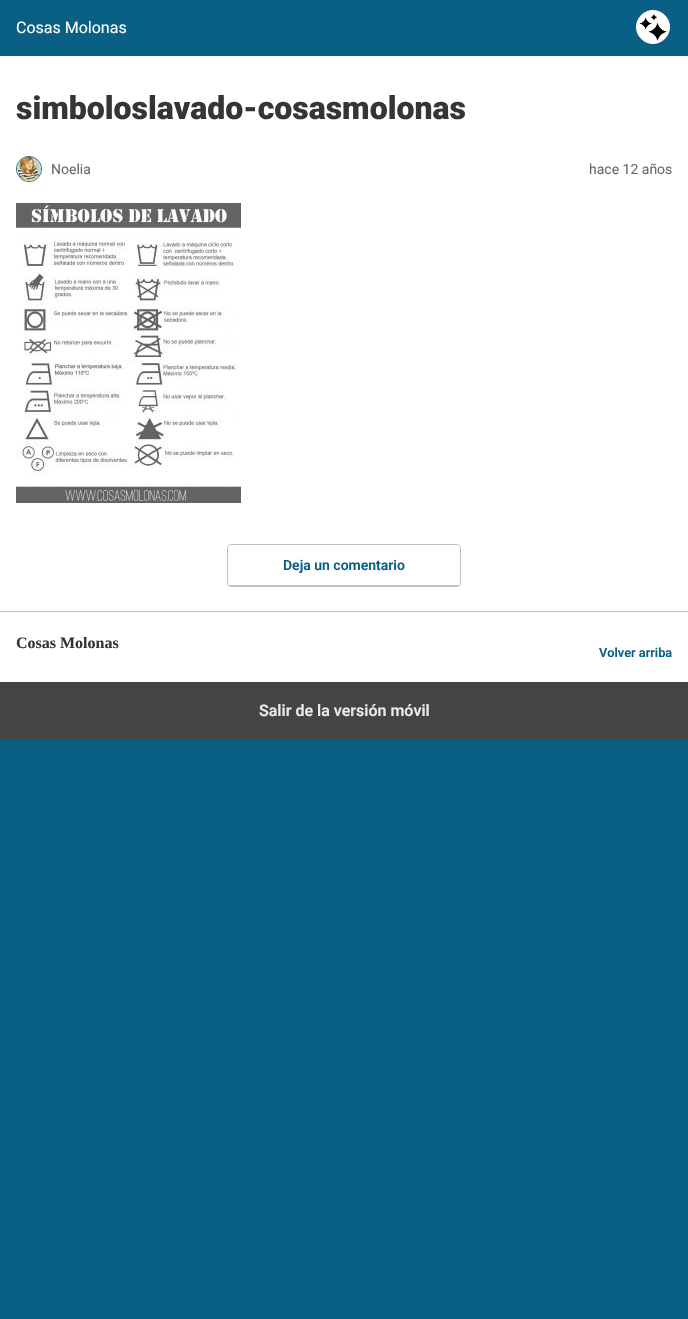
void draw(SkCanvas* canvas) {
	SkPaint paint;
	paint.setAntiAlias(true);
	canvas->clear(0xff0a5f85);
	paint.setColor(0xffffffff);
	canvas->drawRect(SkRect::MakeXYWH(0, 56, 688, 626), paint);
	SkFont f1(fontMgr->matchFamilyStyle("Roboto", SkFontStyle::Normal()), 16);
	f1.setSubpixel(true);
	canvas->drawString("Cosas Molonas", 16, 33, f1, paint);
	canvas->drawCircle(653, 27, 16.5, paint);
	paint.setStroke(true);
	paint.setStrokeWidth(1);
	canvas->drawCircle(653, 27, 16.5, paint);
	canvas->drawImageRect(SkImages::DeferredFromEncodedData(SkData::MakeFromFileName("img1.png")), SkRect::MakeXYWH(639, 14, 28, 27), SkSamplingOptions());
	SkFont f2(fontMgr->matchFamilyStyle("Roboto", SkFontStyle(900, SkFontStyle::kNormal_Width, SkFontStyle::kUpright_Slant)), 32);
	f2.setSubpixel(true);
	paint.setStroke(false);
	paint.setColor(0xff353535);
	canvas->drawString("simboloslavado-cosasmolonas", 16, 119, f2, paint);
	paint.setStroke(true);
	paint.setColor(0xff0a5f85);
	canvas->drawCircle(29, 169, 12.5, paint);
	canvas->drawImageRect(SkImages::DeferredFromEncodedData(SkData::MakeFromFileName("img2.png")), SkRect::MakeXYWH(17, 157, 24, 24), SkSamplingOptions());
	SkFont f3(fontMgr->matchFamilyStyle("Roboto", SkFontStyle::Normal()), 14);
	f3.setSubpixel(true);
	paint.setStroke(false);
	paint.setColor(0xff696969);
	canvas->drawString("Noelia", 51, 174, f3, paint);
	canvas->drawString("hace 12 años", 589, 174, f3, paint);
	canvas->drawImageRect(SkImages::DeferredFromEncodedData(SkData::MakeFromFileName("img3.png")), SkRect::MakeXYWH(16, 203, 225, 300), SkSamplingOptions());
	paint.setStroke(true);
	paint.setColor(0xffc2c2c2);
	canvas->drawRoundRect(SkRect::MakeXYWH(227.5, 544.5, 233, 42), 3.5, 3.5, paint);
	paint.setStroke(false);
	canvas->drawRect(SkRect::MakeXYWH(229, 585, 230, 1), paint);
	SkFont f4(fontMgr->matchFamilyStyle("Roboto", SkFontStyle(600, SkFontStyle::kNormal_Width, SkFontStyle::kUpright_Slant)), 14);
	f4.setSubpixel(true);
	paint.setColor(0xff0a5f85);
	canvas->drawString("Deja un comentario", 283, 570, f4, paint);
	paint.setColor(0xffc2c2c2);
	canvas->drawRect(SkRect::MakeXYWH(0, 611, 688, 1), paint);
	SkFont f5(fontMgr->matchFamilyStyle("Liberation Serif", SkFontStyle::Bold()), 16);
	f5.setSubpixel(true);
	paint.setColor(0xff353535);
	canvas->drawString("Cosas Molonas", 16, 648, f5, paint);
	SkFont f6(fontMgr->matchFamilyStyle("Roboto", SkFontStyle(600, SkFontStyle::kNormal_Width, SkFontStyle::kUpright_Slant)), 12.75);
	f6.setSubpixel(true);
	paint.setColor(0xff0a5f85);
	canvas->drawString("Volver arriba", 599, 657, f6, paint);
	paint.setColor(0xff444444);
	canvas->drawRect(SkRect::MakeXYWH(0, 682, 688, 58), paint);
	SkFont f7(fontMgr->matchFamilyStyle("Roboto", SkFontStyle(600, SkFontStyle::kNormal_Width, SkFontStyle::kUpright_Slant)), 16);
	f7.setSubpixel(true);
	paint.setColor(0xffeaeaea);
	canvas->drawString("Salir de la versión móvil", 259, 716, f7, paint);
}
